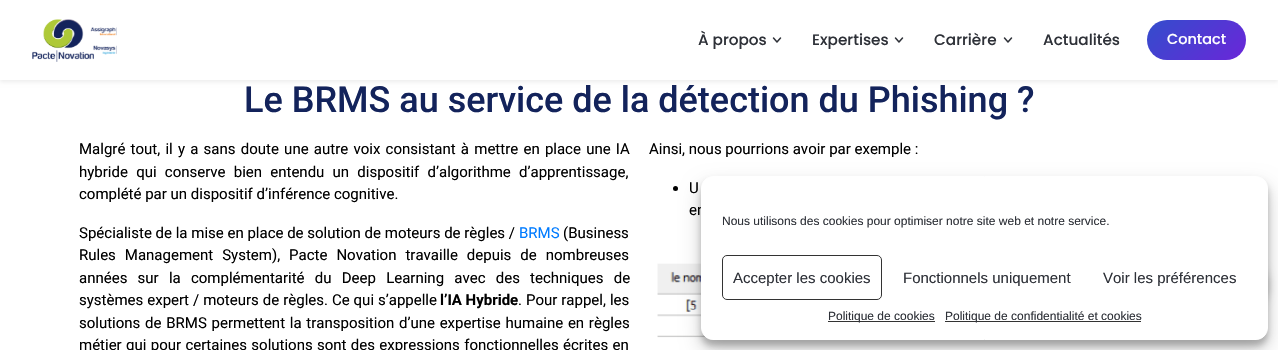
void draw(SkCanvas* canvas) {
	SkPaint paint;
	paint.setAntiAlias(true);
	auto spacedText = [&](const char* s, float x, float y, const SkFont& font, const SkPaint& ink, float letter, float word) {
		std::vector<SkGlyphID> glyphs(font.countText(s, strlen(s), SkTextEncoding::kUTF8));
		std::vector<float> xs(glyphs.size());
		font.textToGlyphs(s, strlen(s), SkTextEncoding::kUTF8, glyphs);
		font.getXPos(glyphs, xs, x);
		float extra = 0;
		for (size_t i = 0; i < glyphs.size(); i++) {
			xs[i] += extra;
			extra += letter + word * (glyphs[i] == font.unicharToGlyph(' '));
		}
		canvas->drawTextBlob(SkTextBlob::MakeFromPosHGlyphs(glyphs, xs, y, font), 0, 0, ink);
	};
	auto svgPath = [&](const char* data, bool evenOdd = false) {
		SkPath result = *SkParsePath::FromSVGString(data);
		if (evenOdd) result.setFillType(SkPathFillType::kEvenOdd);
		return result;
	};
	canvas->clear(0xffffffff);
	paint.setColor(0x12000000);
	paint.setMaskFilter(SkMaskFilter::MakeBlur(kNormal_SkBlurStyle, 2));
	canvas->drawRect(SkRect::MakeXYWH(0, 2, 1278, 80), paint);
	paint.setMaskFilter(nullptr);
	paint.setColor(0xffffffff);
	canvas->drawRect(SkRect::MakeXYWH(0, 0, 1278, 80), paint);
	canvas->drawImageRect(SkImages::DeferredFromEncodedData(SkData::MakeFromFileName("img1.png")), SkRect::MakeXYWH(32, 19, 85, 43), SkSamplingOptions());
	SkFont f1(fontMgr->matchFamilyStyle("Poppins", SkFontStyle(500, SkFontStyle::kNormal_Width, SkFontStyle::kUpright_Slant)), 15.25);
	f1.setSubpixel(true);
	paint.setColor(0xff2e3138);
	canvas->drawString("À propos", 698, 45, f1, paint);
	paint.setStroke(true);
	paint.setStrokeWidth(1.5);
	paint.setStrokeCap(SkPaint::kRound_Cap);
	paint.setStrokeJoin(SkPaint::kRound_Join);
	canvas->drawPath(svgPath("M773.5 38L777 42L780.5 38"), paint);
	paint.setStroke(false);
	canvas->drawString("Expertises", 812, 45, f1, paint);
	paint.setStroke(true);
	canvas->drawPath(svgPath("M895.5 38L899 42L902.5 38"), paint);
	paint.setStroke(false);
	canvas->drawString("Carrière", 934, 45, f1, paint);
	paint.setStroke(true);
	canvas->drawPath(svgPath("M1004.5 38L1008 42L1011.5 38"), paint);
	paint.setStroke(false);
	canvas->drawString("Actualités", 1043, 45, f1, paint);
	{
		const SkColor colors[] = {0xff334dcc, 0xff6b26d9};
		const float stops[] = {0, 1};
		const SkPoint ends[] = {{1162, 5.2}, {1231, 75}};
		paint.setShader(SkGradientShader::MakeLinear(ends, colors, stops, 2, SkTileMode::kClamp));
		paint.setAlpha(255);
	}
	canvas->drawRoundRect(SkRect::MakeXYWH(1147, 20, 99, 40), 20, 20, paint);
	SkFont f2(fontMgr->matchFamilyStyle("Poppins", SkFontStyle(500, SkFontStyle::kNormal_Width, SkFontStyle::kUpright_Slant)), 14.5);
	f2.setSubpixel(true);
	paint.setShader(nullptr);
	paint.setColor(0xffffffff);
	canvas->drawString("Contact", 1167, 44, f2, paint);
	SkFont f3(fontMgr->matchFamilyStyle("Roboto", SkFontStyle(500, SkFontStyle::kNormal_Width, SkFontStyle::kUpright_Slant)), 36);
	f3.setSubpixel(true);
	paint.setColor(0xff13235b);
	canvas->drawString("Le BRMS au service de la détection du Phishing ?", 244, 112, f3, paint);
	SkFont f4(fontMgr->matchFamilyStyle("Roboto", SkFontStyle::Normal()), 15);
	f4.setSubpixel(true);
	paint.setColor(0xff000000);
	spacedText("Malgré tout, il y a sans doute une autre voix consistant à mettre en place une IA", 79, 154, f4, paint, 0, 1.5);
	spacedText("hybride qui conserve bien entendu un dispositif d’algorithme d’apprentissage,", 79, 177, f4, paint, 0, 4.5);
	canvas->drawString("complété par un dispositif d’inférence cognitive.", 79, 199, f4, paint);
	canvas->drawString("Spécialiste de la mise en place de solution de moteurs de règles /", 79, 238, f4, paint);
	paint.setColor(0xff007bff);
	canvas->drawString("BRMS", 519, 238, f4, paint);
	paint.setColor(0xff000000);
	canvas->drawString("(Business", 563, 238, f4, paint);
	spacedText("Rules Management System), Pacte Novation travaille depuis de nombreuses", 79, 260, f4, paint, 0, 5.25);
	spacedText("années sur la complémentarité du Deep Learning avec des techniques de", 79, 283, f4, paint, 0, 6.5);
	spacedText("systèmes expert / moteurs de règles. Ce qui s’appelle", 79, 305, f4, paint, 0, 0.25);
	SkFont f5(fontMgr->matchFamilyStyle("Roboto", SkFontStyle::Bold()), 15);
	f5.setSubpixel(true);
	canvas->drawString("l’IA Hybride", 440, 305, f5, paint);
	spacedText(". Pour rappel, les", 518, 305, f4, paint, 0, 0.25);
	spacedText("solutions de BRMS permettent la transposition d’une expertise humaine en règles", 79, 328, f4, paint, 0, 1);
	spacedText("métier qui pour certaines solutions sont des expressions fonctionnelles écrites en", 79, 350, f4, paint, 0, 0.6);
	canvas->drawString("Ainsi, nous pourrions avoir par exemple :", 649, 154, f4, paint);
	canvas->drawCircle(675.5, 188.5, 2.5, paint);
	spacedText("U", 689, 193, f4, paint, 0, 1);
	canvas->drawString("en", 689, 215, f4, paint);
	canvas->drawImageRect(SkImages::DeferredFromEncodedData(SkData::MakeFromFileName("img2.png")), SkRect::MakeXYWH(657, 263, 50, 75), SkSamplingOptions());
	paint.setColor(0x40000000);
	paint.setMaskFilter(SkMaskFilter::MakeBlur(kNormal_SkBlurStyle, 5));
	canvas->drawRoundRect(SkRect::MakeXYWH(1222, 262, 46, 47), 23, 23, paint);
	paint.setMaskFilter(nullptr);
	paint.setColor(0x3b000000);
	paint.setMaskFilter(SkMaskFilter::MakeBlur(kNormal_SkBlurStyle, 3));
	canvas->drawRoundRect(SkRect::MakeXYWH(701, 182, 567, 164), 12, 12, paint);
	paint.setMaskFilter(nullptr);
	paint.setColor(0x30000000);
	paint.setMaskFilter(SkMaskFilter::MakeBlur(kNormal_SkBlurStyle, 10));
	canvas->drawRoundRect(SkRect::MakeXYWH(701, 186, 567, 164), 12, 12, paint);
	paint.setMaskFilter(nullptr);
	paint.setColor(0xffffffff);
	canvas->drawRoundRect(SkRect::MakeXYWH(701.5, 176.5, 566, 163), 11.5, 11.5, paint);
	paint.setStroke(true);
	paint.setStrokeWidth(1);
	paint.setStrokeCap(SkPaint::kButt_Cap);
	paint.setStrokeJoin(SkPaint::kMiter_Join);
	canvas->drawRoundRect(SkRect::MakeXYWH(701.5, 176.5, 566, 163), 11.5, 11.5, paint);
	SkFont f6(fontMgr->matchFamilyStyle("Liberation Sans", SkFontStyle::Normal()), 12);
	f6.setSubpixel(true);
	paint.setStroke(false);
	paint.setColor(0xff2e3138);
	canvas->drawString("Nous utilisons des cookies pour optimiser notre site web et notre service.", 722, 225, f6, paint);
	paint.setStroke(true);
	paint.setColor(0xff333333);
	canvas->drawRoundRect(SkRect::MakeXYWH(722.5, 255.5, 159, 44), 4.5, 4.5, paint);
	SkFont f7(fontMgr->matchFamilyStyle("Liberation Sans", SkFontStyle::Normal()), 15);
	f7.setSubpixel(true);
	paint.setStroke(false);
	paint.setColor(0xff2e3138);
	canvas->drawString("Accepter les cookies", 733, 283, f7, paint);
	canvas->drawString("Fonctionnels uniquement", 903, 283, f7, paint);
	canvas->drawString("Voir les préférences", 1103, 283, f7, paint);
	paint.setColor(0xff333333);
	canvas->drawRect(SkRect::MakeXYWH(828, 321, 107, 1), paint);
	paint.setColor(0xff2e3138);
	canvas->drawString("Politique de cookies", 828, 320, f6, paint);
	paint.setColor(0xff333333);
	canvas->drawRect(SkRect::MakeXYWH(945, 321, 196, 1), paint);
	paint.setColor(0xff2e3138);
	canvas->drawString("Politique de confidentialité et cookies", 945, 320, f6, paint);
}
